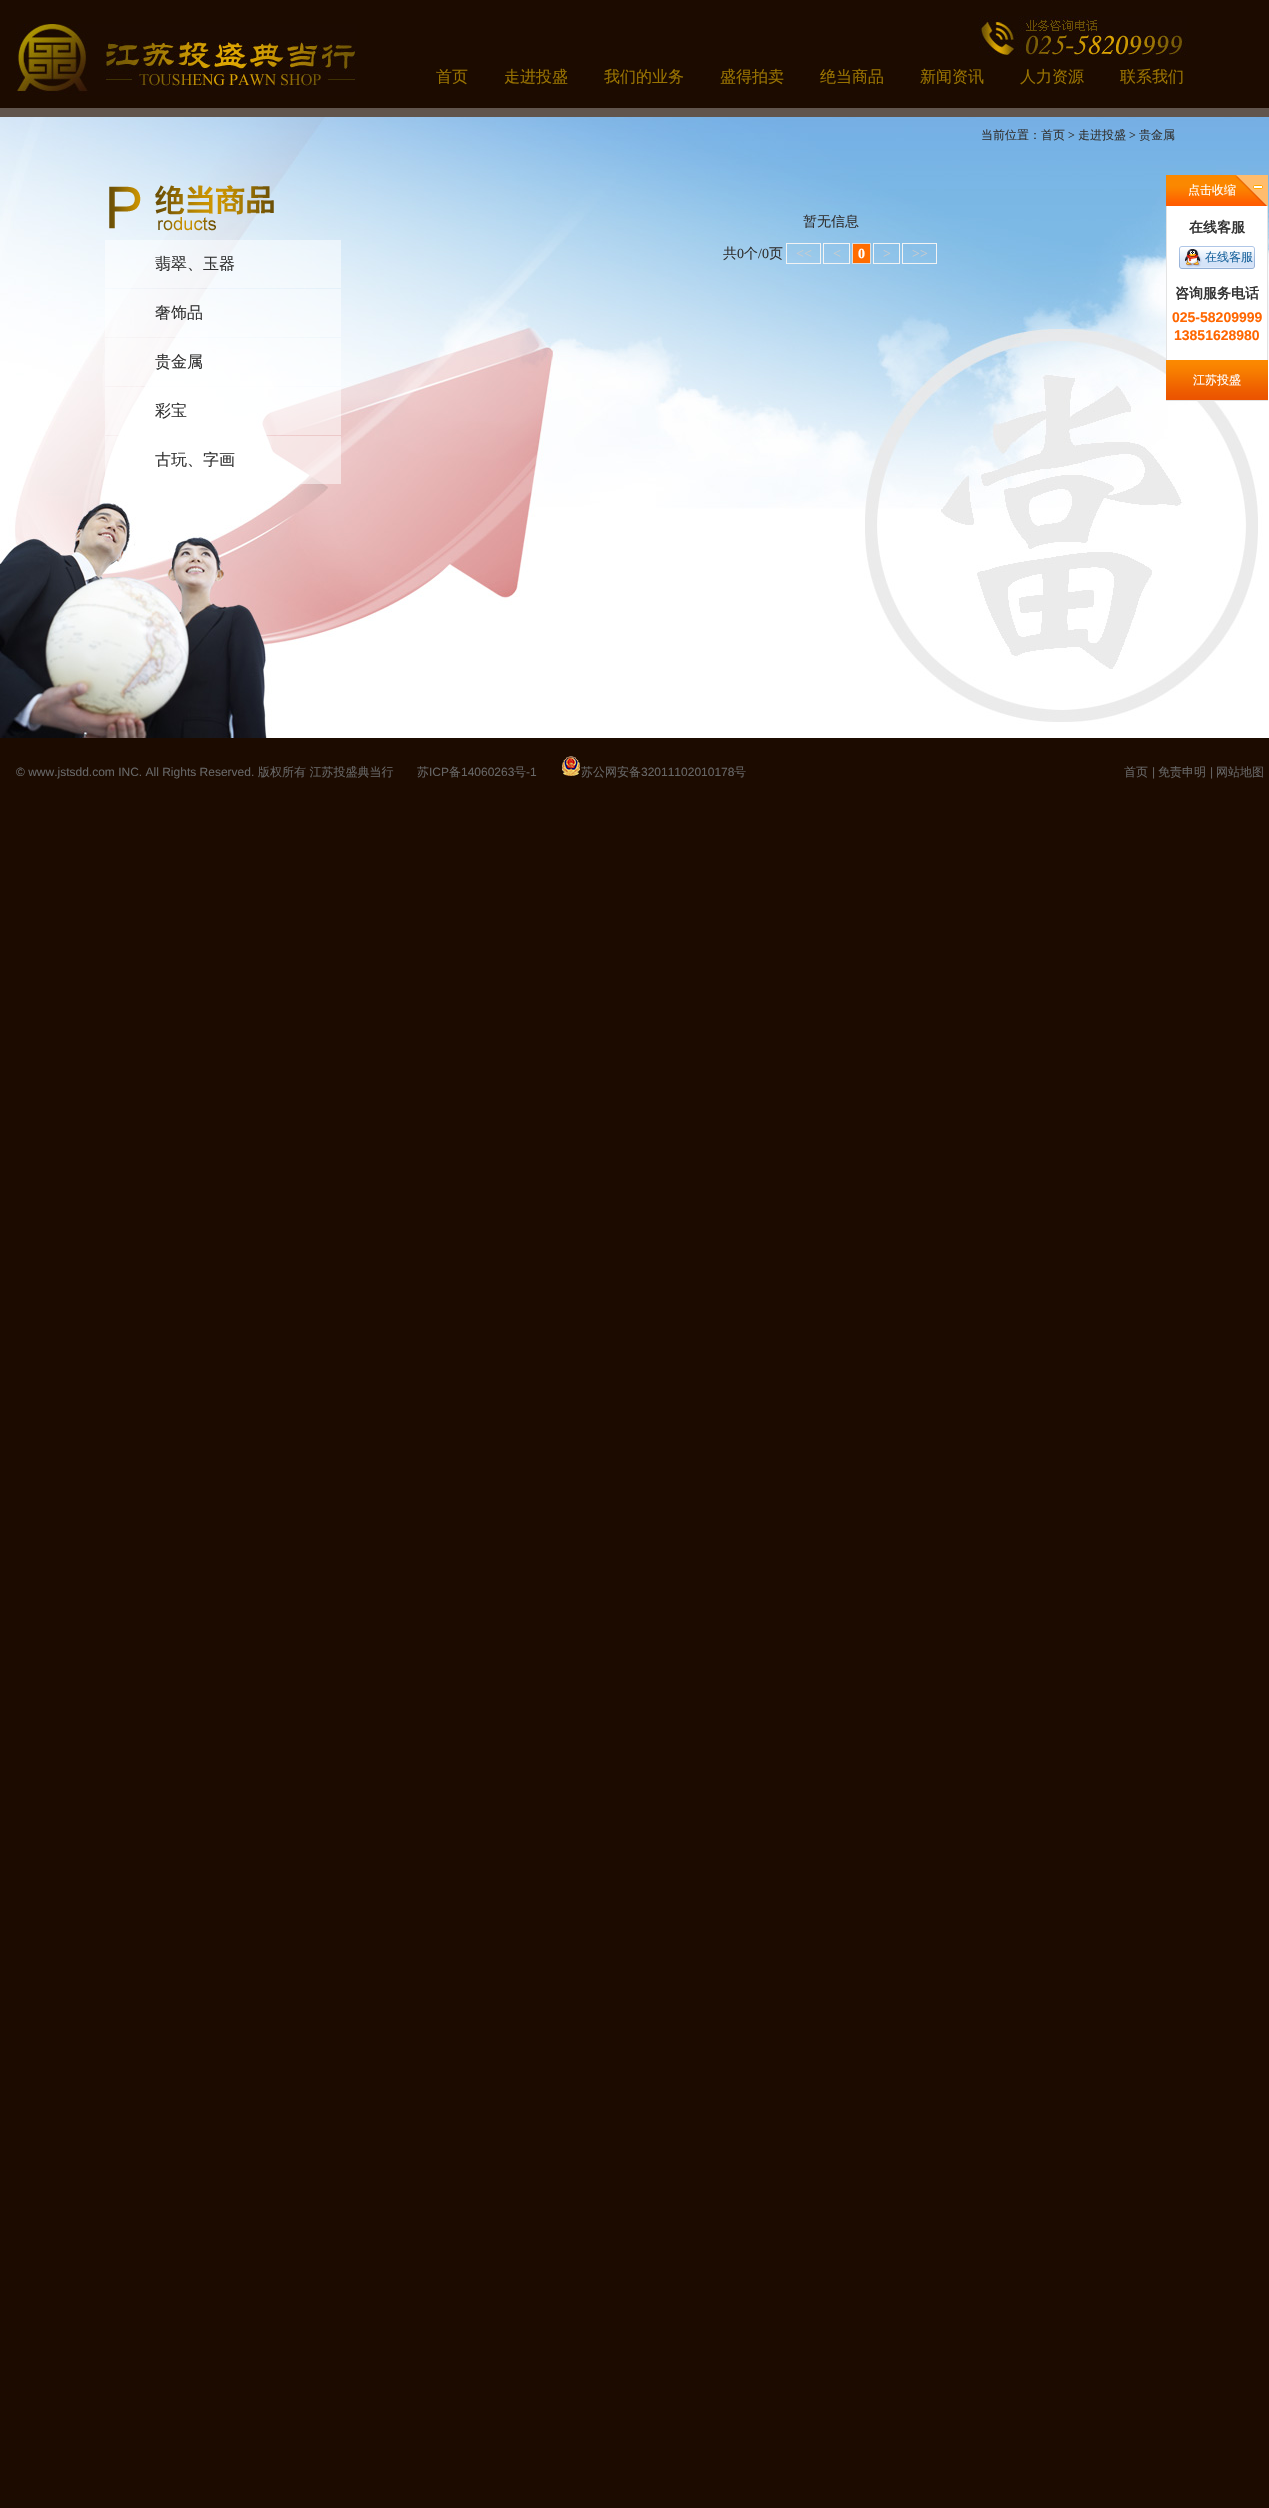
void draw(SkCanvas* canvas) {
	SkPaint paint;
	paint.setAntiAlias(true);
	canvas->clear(0xff1c0b00);
	canvas->drawImageRect(SkImages::DeferredFromEncodedData(SkData::MakeFromFileName("img1.png")), SkRect::MakeXYWH(979, 16, 208, 40), SkSamplingOptions());
	canvas->drawImageRect(SkImages::DeferredFromEncodedData(SkData::MakeFromFileName("img2.png")), SkRect::MakeXYWH(16, 24, 341, 72), SkSamplingOptions());
	SkFont f1(fontMgr->matchFamilyStyle("WenQuanYi Zen Hei", SkFontStyle(500, SkFontStyle::kNormal_Width, SkFontStyle::kUpright_Slant)), 16);
	f1.setSubpixel(true);
	paint.setColor(0xff997301);
	canvas->drawString("首页", 436, 82, f1, paint);
	canvas->drawString("走进投盛", 504, 82, f1, paint);
	canvas->drawString("我们的业务", 604, 82, f1, paint);
	canvas->drawString("盛得拍卖", 720, 82, f1, paint);
	canvas->drawString("绝当商品", 820, 82, f1, paint);
	canvas->drawString("新闻资讯", 920, 82, f1, paint);
	canvas->drawString("人力资源", 1020, 82, f1, paint);
	canvas->drawString("联系我们", 1120, 82, f1, paint);
	canvas->drawImageRect(SkImages::DeferredFromEncodedData(SkData::MakeFromFileName("img3.png")), SkRect::MakeXYWH(0, 117, 1269, 621), SkSamplingOptions());
	paint.setColor(0xff61554d);
	canvas->drawRect(SkRect::MakeXYWH(0, 108, 1269, 9), paint);
	SkFont f2(fontMgr->matchFamilyStyle("WenQuanYi Zen Hei", SkFontStyle(500, SkFontStyle::kNormal_Width, SkFontStyle::kUpright_Slant)), 12);
	f2.setSubpixel(true);
	paint.setColor(0xff333333);
	canvas->drawString("当前位置：首页", 981, 139, f2, paint);
	SkFont f3(fontMgr->matchFamilyStyle("Liberation Serif", SkFontStyle::Normal()), 12);
	f3.setSubpixel(true);
	canvas->drawString(">", 1068, 139, f3, paint);
	canvas->drawString("走进投盛", 1078, 139, f2, paint);
	canvas->drawString(">", 1129, 139, f3, paint);
	canvas->drawString("贵金属", 1139, 139, f2, paint);
	SkFont f4(fontMgr->matchFamilyStyle("WenQuanYi Zen Hei", SkFontStyle(500, SkFontStyle::kNormal_Width, SkFontStyle::kUpright_Slant)), 14);
	f4.setSubpixel(true);
	canvas->drawString("暂无信息", 803, 226, f4, paint);
	canvas->drawString("共", 723, 258, f4, paint);
	SkFont f5(fontMgr->matchFamilyStyle("Liberation Serif", SkFontStyle::Normal()), 14);
	f5.setSubpixel(true);
	canvas->drawString("0", 737, 258, f5, paint);
	canvas->drawString("个", 744, 258, f4, paint);
	canvas->drawString("/0", 758, 258, f5, paint);
	canvas->drawString("页", 769, 258, f4, paint);
	paint.setStroke(true);
	paint.setStrokeWidth(1);
	paint.setColor(0xfff3f3f3);
	canvas->drawRect(SkRect::MakeXYWH(786.5, 243.5, 34, 20), paint);
	paint.setStroke(false);
	paint.setColor(0xffcccccc);
	canvas->drawString("<<", 796, 258, f5, paint);
	paint.setStroke(true);
	paint.setColor(0xfff3f3f3);
	canvas->drawRect(SkRect::MakeXYWH(823.5, 243.5, 26, 20), paint);
	paint.setStroke(false);
	paint.setColor(0xffcccccc);
	canvas->drawString("<", 833, 258, f5, paint);
	paint.setColor(0xffff6c00);
	canvas->drawRect(SkRect::MakeXYWH(852.5, 243.5, 18, 20), paint);
	paint.setStroke(true);
	paint.setColor(0xffdddddd);
	canvas->drawRect(SkRect::MakeXYWH(852.5, 243.5, 18, 20), paint);
	SkFont f6(fontMgr->matchFamilyStyle("Liberation Serif", SkFontStyle::Bold()), 14);
	f6.setSubpixel(true);
	paint.setStroke(false);
	paint.setColor(0xffffffff);
	canvas->drawString("0", 858, 258, f6, paint);
	paint.setStroke(true);
	paint.setColor(0xfff3f3f3);
	canvas->drawRect(SkRect::MakeXYWH(873.5, 243.5, 26, 20), paint);
	paint.setStroke(false);
	paint.setColor(0xffcccccc);
	canvas->drawString(">", 883, 258, f5, paint);
	paint.setStroke(true);
	paint.setColor(0xfff3f3f3);
	canvas->drawRect(SkRect::MakeXYWH(902.5, 243.5, 34, 20), paint);
	paint.setStroke(false);
	paint.setColor(0xffcccccc);
	canvas->drawString(">>", 912, 258, f5, paint);
	canvas->drawImageRect(SkImages::DeferredFromEncodedData(SkData::MakeFromFileName("img4.png")), SkRect::MakeXYWH(109, 185, 165, 46), SkSamplingOptions());
	paint.setColor(0x82ffffff);
	canvas->drawRect(SkRect::MakeXYWH(105, 240, 236, 48), paint);
	paint.setColor(0xff333333);
	canvas->drawString("翡翠、玉器", 155, 269, f1, paint);
	paint.setColor(0x82ffffff);
	canvas->drawRect(SkRect::MakeXYWH(105, 289, 236, 48), paint);
	paint.setColor(0xff333333);
	canvas->drawString("奢饰品", 155, 318, f1, paint);
	paint.setColor(0x82ffffff);
	canvas->drawRect(SkRect::MakeXYWH(105, 338, 236, 48), paint);
	paint.setColor(0xff333333);
	canvas->drawString("贵金属", 155, 367, f1, paint);
	paint.setColor(0x82ffffff);
	canvas->drawRect(SkRect::MakeXYWH(105, 387, 236, 48), paint);
	paint.setColor(0xff333333);
	canvas->drawString("彩宝", 155, 416, f1, paint);
	paint.setColor(0x82ffffff);
	canvas->drawRect(SkRect::MakeXYWH(105, 436, 236, 48), paint);
	paint.setColor(0xff333333);
	canvas->drawString("古玩、字画", 155, 465, f1, paint);
	canvas->drawImageRect(SkImages::DeferredFromEncodedData(SkData::MakeFromFileName("img5.png")), SkRect::MakeXYWH(1166, 175, 102, 31), SkSamplingOptions());
	paint.setColor(0xffffffff);
	canvas->drawString("点击收缩", 1188, 194, f2, paint);
	canvas->drawRect(SkRect::MakeXYWH(1167, 206, 100, 154), paint);
	paint.setColor(0xffe3e3e3);
	canvas->drawRect(SkRect::MakeXYWH(1267, 206, 1, 154), paint);
	canvas->drawRect(SkRect::MakeXYWH(1166, 206, 1, 154), paint);
	SkFont f7(fontMgr->matchFamilyStyle("WenQuanYi Zen Hei", SkFontStyle::Bold()), 14);
	f7.setSubpixel(true);
	paint.setColor(0xff333333);
	canvas->drawString("在线客服", 1189, 232, f7, paint);
	canvas->drawImageRect(SkImages::DeferredFromEncodedData(SkData::MakeFromFileName("img6.png")), SkRect::MakeXYWH(1179, 246, 76, 23), SkSamplingOptions());
	paint.setColor(0xff1a649d);
	canvas->drawString("在线客服", 1205, 261, f2, paint);
	paint.setColor(0xff333333);
	canvas->drawString("咨询服务电话", 1175, 298, f7, paint);
	SkFont f8(fontMgr->matchFamilyStyle("Liberation Sans", SkFontStyle::Bold()), 14);
	f8.setSubpixel(true);
	paint.setColor(0xffff6600);
	canvas->drawString("025-58209999", 1172, 322, f8, paint);
	canvas->drawString("13851628980", 1174, 340, f8, paint);
	canvas->drawImageRect(SkImages::DeferredFromEncodedData(SkData::MakeFromFileName("img7.png")), SkRect::MakeXYWH(1166, 360, 102, 40), SkSamplingOptions());
	paint.setColor(0xffe3e3e3);
	canvas->drawRect(SkRect::MakeXYWH(1166, 400, 102, 1), paint);
	paint.setColor(0xffffffff);
	canvas->drawString("江苏投盛", 1193, 384, f2, paint);
	SkFont f9(fontMgr->matchFamilyStyle("Liberation Sans", SkFontStyle::Normal()), 12);
	f9.setSubpixel(true);
	paint.setColor(0xff666666);
	canvas->drawString("© www.jstsdd.com INC. All Rights Reserved.", 16, 776, f9, paint);
	canvas->drawString("版权所有 江苏投盛典当行", 258, 776, f2, paint);
	canvas->drawString("苏", 417, 776, f2, paint);
	canvas->drawString("ICP", 429, 776, f9, paint);
	canvas->drawString("备", 449, 776, f2, paint);
	canvas->drawString("14060263", 461, 776, f9, paint);
	canvas->drawString("号", 514, 776, f2, paint);
	canvas->drawString("-1", 526, 776, f9, paint);
	canvas->drawImageRect(SkImages::DeferredFromEncodedData(SkData::MakeFromFileName("img8.png")), SkRect::MakeXYWH(562, 756, 18, 20), SkSamplingOptions());
	canvas->drawString("苏公网安备", 581, 776, f2, paint);
	canvas->drawString("32011102010178", 641, 776, f9, paint);
	canvas->drawString("号", 734, 776, f2, paint);
	canvas->drawString("首页", 1124, 776, f2, paint);
	canvas->drawString("|", 1152, 776, f9, paint);
	canvas->drawString("免责申明", 1158, 776, f2, paint);
	canvas->drawString("|", 1210, 776, f9, paint);
	canvas->drawString("网站地图", 1216, 776, f2, paint);
}
